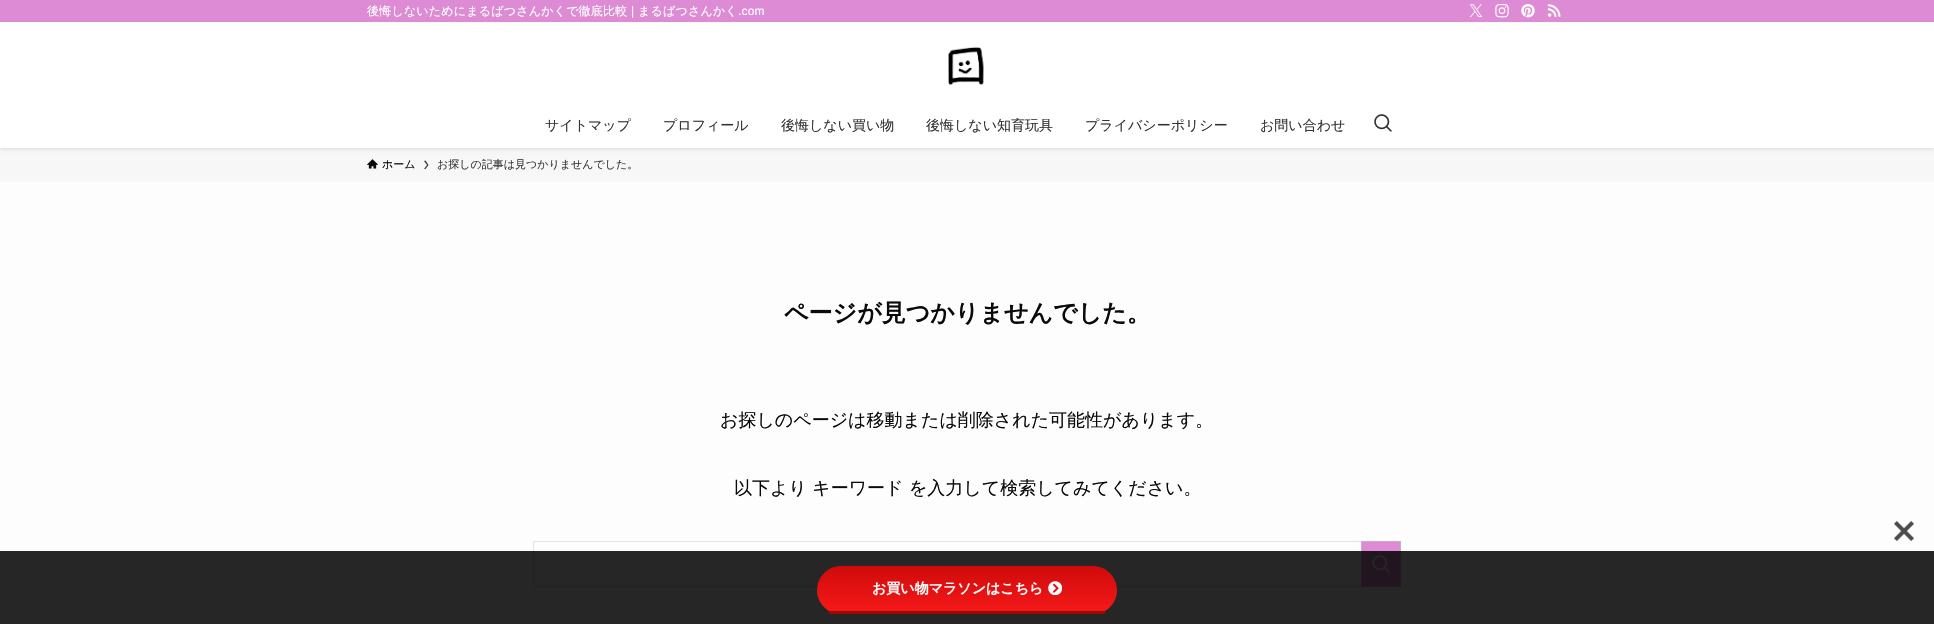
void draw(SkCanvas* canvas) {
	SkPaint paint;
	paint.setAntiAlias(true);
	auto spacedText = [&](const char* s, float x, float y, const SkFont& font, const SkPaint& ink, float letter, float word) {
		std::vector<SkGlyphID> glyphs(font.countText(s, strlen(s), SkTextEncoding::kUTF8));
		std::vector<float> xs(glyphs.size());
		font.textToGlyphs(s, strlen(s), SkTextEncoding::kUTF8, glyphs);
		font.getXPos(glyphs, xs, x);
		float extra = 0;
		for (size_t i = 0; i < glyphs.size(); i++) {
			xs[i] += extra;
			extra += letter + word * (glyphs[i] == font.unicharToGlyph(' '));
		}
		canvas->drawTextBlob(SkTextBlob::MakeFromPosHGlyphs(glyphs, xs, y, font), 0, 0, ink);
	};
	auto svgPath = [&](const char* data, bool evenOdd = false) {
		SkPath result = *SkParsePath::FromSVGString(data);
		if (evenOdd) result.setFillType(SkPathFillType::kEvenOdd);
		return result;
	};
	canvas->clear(0xfffdfdfd);
	paint.setColor(0xfff7f7f7);
	canvas->drawRect(SkRect::MakeXYWH(0, 148, 1934, 34), paint);
	paint.setColor(0x1f000000);
	paint.setMaskFilter(SkMaskFilter::MakeBlur(kNormal_SkBlurStyle, 2));
	canvas->drawRect(SkRect::MakeXYWH(0, 1, 1934, 148), paint);
	paint.setMaskFilter(nullptr);
	paint.setColor(0xffffffff);
	canvas->drawRect(SkRect::MakeXYWH(0, 22, 1934, 126), paint);
	paint.setColor(0xffdd8bd4);
	canvas->drawRect(SkRect::MakeXYWH(0, 0, 1934, 22), paint);
	SkFont f1(fontMgr->matchFamilyStyle("WenQuanYi Zen Hei", SkFontStyle(500, SkFontStyle::kNormal_Width, SkFontStyle::kUpright_Slant)), 12);
	f1.setSubpixel(true);
	paint.setColor(0xffffffff);
	spacedText("後悔しないためにまるばつさんかくで徹底比較", 367, 15, f1, paint, 0.2, 0);
	SkFont f2(fontMgr->matchFamilyStyle("Liberation Sans", SkFontStyle::Normal()), 12);
	f2.setSubpixel(true);
	spacedText("|", 631, 15, f2, paint, 0.2, 0);
	spacedText("まるばつさんかく", 638, 15, f1, paint, 0.2, 0);
	spacedText(".com", 738, 15, f2, paint, 0.2, 0);
	canvas->drawImageRect(SkImages::DeferredFromEncodedData(SkData::MakeFromFileName("img1.png")), SkRect::MakeXYWH(1469, 4, 13, 14), SkSamplingOptions());
	canvas->drawImageRect(SkImages::DeferredFromEncodedData(SkData::MakeFromFileName("img2.png")), SkRect::MakeXYWH(1495, 4, 14, 14), SkSamplingOptions());
	canvas->drawImageRect(SkImages::DeferredFromEncodedData(SkData::MakeFromFileName("img3.png")), SkRect::MakeXYWH(1521, 4, 14, 14), SkSamplingOptions());
	canvas->drawImageRect(SkImages::DeferredFromEncodedData(SkData::MakeFromFileName("img4.png")), SkRect::MakeXYWH(1547, 4, 14, 13), SkSamplingOptions());
	canvas->drawImageRect(SkImages::DeferredFromEncodedData(SkData::MakeFromFileName("img5.png")), SkRect::MakeXYWH(948, 47, 36, 39), SkSamplingOptions());
	SkFont f3(fontMgr->matchFamilyStyle("WenQuanYi Zen Hei", SkFontStyle(500, SkFontStyle::kNormal_Width, SkFontStyle::kUpright_Slant)), 14);
	f3.setSubpixel(true);
	paint.setColor(0xff333333);
	canvas->drawString("サイトマップ", 545, 130, f3, paint);
	canvas->drawString("プロフィール", 663, 130, f3, paint);
	canvas->drawString("後悔しない買い物", 781, 130, f3, paint);
	canvas->drawString("後悔しない知育玩具", 926, 130, f3, paint);
	canvas->drawString("プライバシーポリシー", 1085, 130, f3, paint);
	canvas->drawString("お問い合わせ", 1260, 130, f3, paint);
	canvas->drawImageRect(SkImages::DeferredFromEncodedData(SkData::MakeFromFileName("img6.png")), SkRect::MakeXYWH(1374, 114, 18, 18), SkSamplingOptions());
	canvas->drawImageRect(SkImages::DeferredFromEncodedData(SkData::MakeFromFileName("img7.png")), SkRect::MakeXYWH(367, 159, 11, 10), SkSamplingOptions());
	SkFont f4(fontMgr->matchFamilyStyle("WenQuanYi Zen Hei", SkFontStyle(500, SkFontStyle::kNormal_Width, SkFontStyle::kUpright_Slant)), 11);
	f4.setSubpixel(true);
	paint.setColor(0xff0a0a0a);
	canvas->drawString("ホーム", 382, 168, f4, paint);
	paint.setColor(0xff393939);
	canvas->drawPath(svgPath("M425.5 160.5L424 161L427 165L424 169H425.5L428.5 165Z"), paint);
	canvas->drawString("お探しの記事は見つかりませんでした。", 437, 168, f4, paint);
	SkFont f5(fontMgr->matchFamilyStyle("WenQuanYi Zen Hei", SkFontStyle::Bold()), 24);
	f5.setSubpixel(true);
	paint.setColor(0xff0a0a0a);
	canvas->drawString("ページが見つかりませんでした。", 784, 321, f5, paint);
	SkFont f6(fontMgr->matchFamilyStyle("WenQuanYi Zen Hei", SkFontStyle(500, SkFontStyle::kNormal_Width, SkFontStyle::kUpright_Slant)), 18);
	f6.setSubpixel(true);
	canvas->drawString("お探しのページは移動または削除された可能性があります。", 720, 426, f6, paint);
	canvas->drawString("以下より キーワード を入力して検索してみてください。", 734, 494, f6, paint);
	paint.setStroke(true);
	paint.setStrokeWidth(1);
	paint.setColor(0xffe3e3e3);
	canvas->drawRect(SkRect::MakeXYWH(533.5, 541.5, 867, 45), paint);
	paint.setStroke(false);
	paint.setColor(0xffdd8bd4);
	canvas->drawRect(SkRect::MakeXYWH(1361.5, 541.5, 39, 45), paint);
	paint.setStroke(true);
	paint.setColor(0xffd2a9ce);
	canvas->drawRect(SkRect::MakeXYWH(1361.5, 541.5, 39, 45), paint);
	canvas->drawImageRect(SkImages::DeferredFromEncodedData(SkData::MakeFromFileName("img8.png")), SkRect::MakeXYWH(1372, 555, 18, 18), SkSamplingOptions());
	paint.setStroke(false);
	paint.setColor(0xd9000000);
	canvas->drawRect(SkRect::MakeXYWH(0, 551, 1934, 73), paint);
	canvas->drawImageRect(SkImages::DeferredFromEncodedData(SkData::MakeFromFileName("img9.png")), SkRect::MakeXYWH(1894, 520, 20, 21), SkSamplingOptions());
	canvas->save();
	canvas->clipPath(svgPath("M841 566H1093C1106.5 566 1117 576.5 1117 590C1117 603.5 1106.5 614 1093 614H841C827.5 614 817 603.5 817 590C817 576.5 827.5 566 841 566Z"), true);
	{
		const SkColor colors[] = {0xffd00a0a, 0xfff41919};
		const float stops[] = {0, 1};
		const SkPoint ends[] = {{967, 566}, {967, 611}};
		paint.setShader(SkGradientShader::MakeLinear(ends, colors, stops, 2, SkTileMode::kClamp));
		paint.setAlpha(255);
	}
	canvas->drawPath(svgPath("M841 566H1093C1106.5 566 1117 576.5 1117 590V611H817V590C817 576.5 827.5 566 841 566Z"), paint);
	canvas->restore();
	paint.setShader(nullptr);
	paint.setColor(0xff9f0808);
	canvas->drawRect(SkRect::MakeXYWH(829, 611, 276, 3), paint);
	SkFont f7(fontMgr->matchFamilyStyle("WenQuanYi Zen Hei", SkFontStyle::Bold()), 14);
	f7.setSubpixel(true);
	paint.setColor(0xffffffff);
	canvas->drawString("お買い物マラソンはこちら", 872, 593, f7, paint);
	canvas->drawImageRect(SkImages::DeferredFromEncodedData(SkData::MakeFromFileName("img10.png")), SkRect::MakeXYWH(1048, 581, 14, 14), SkSamplingOptions());
}
